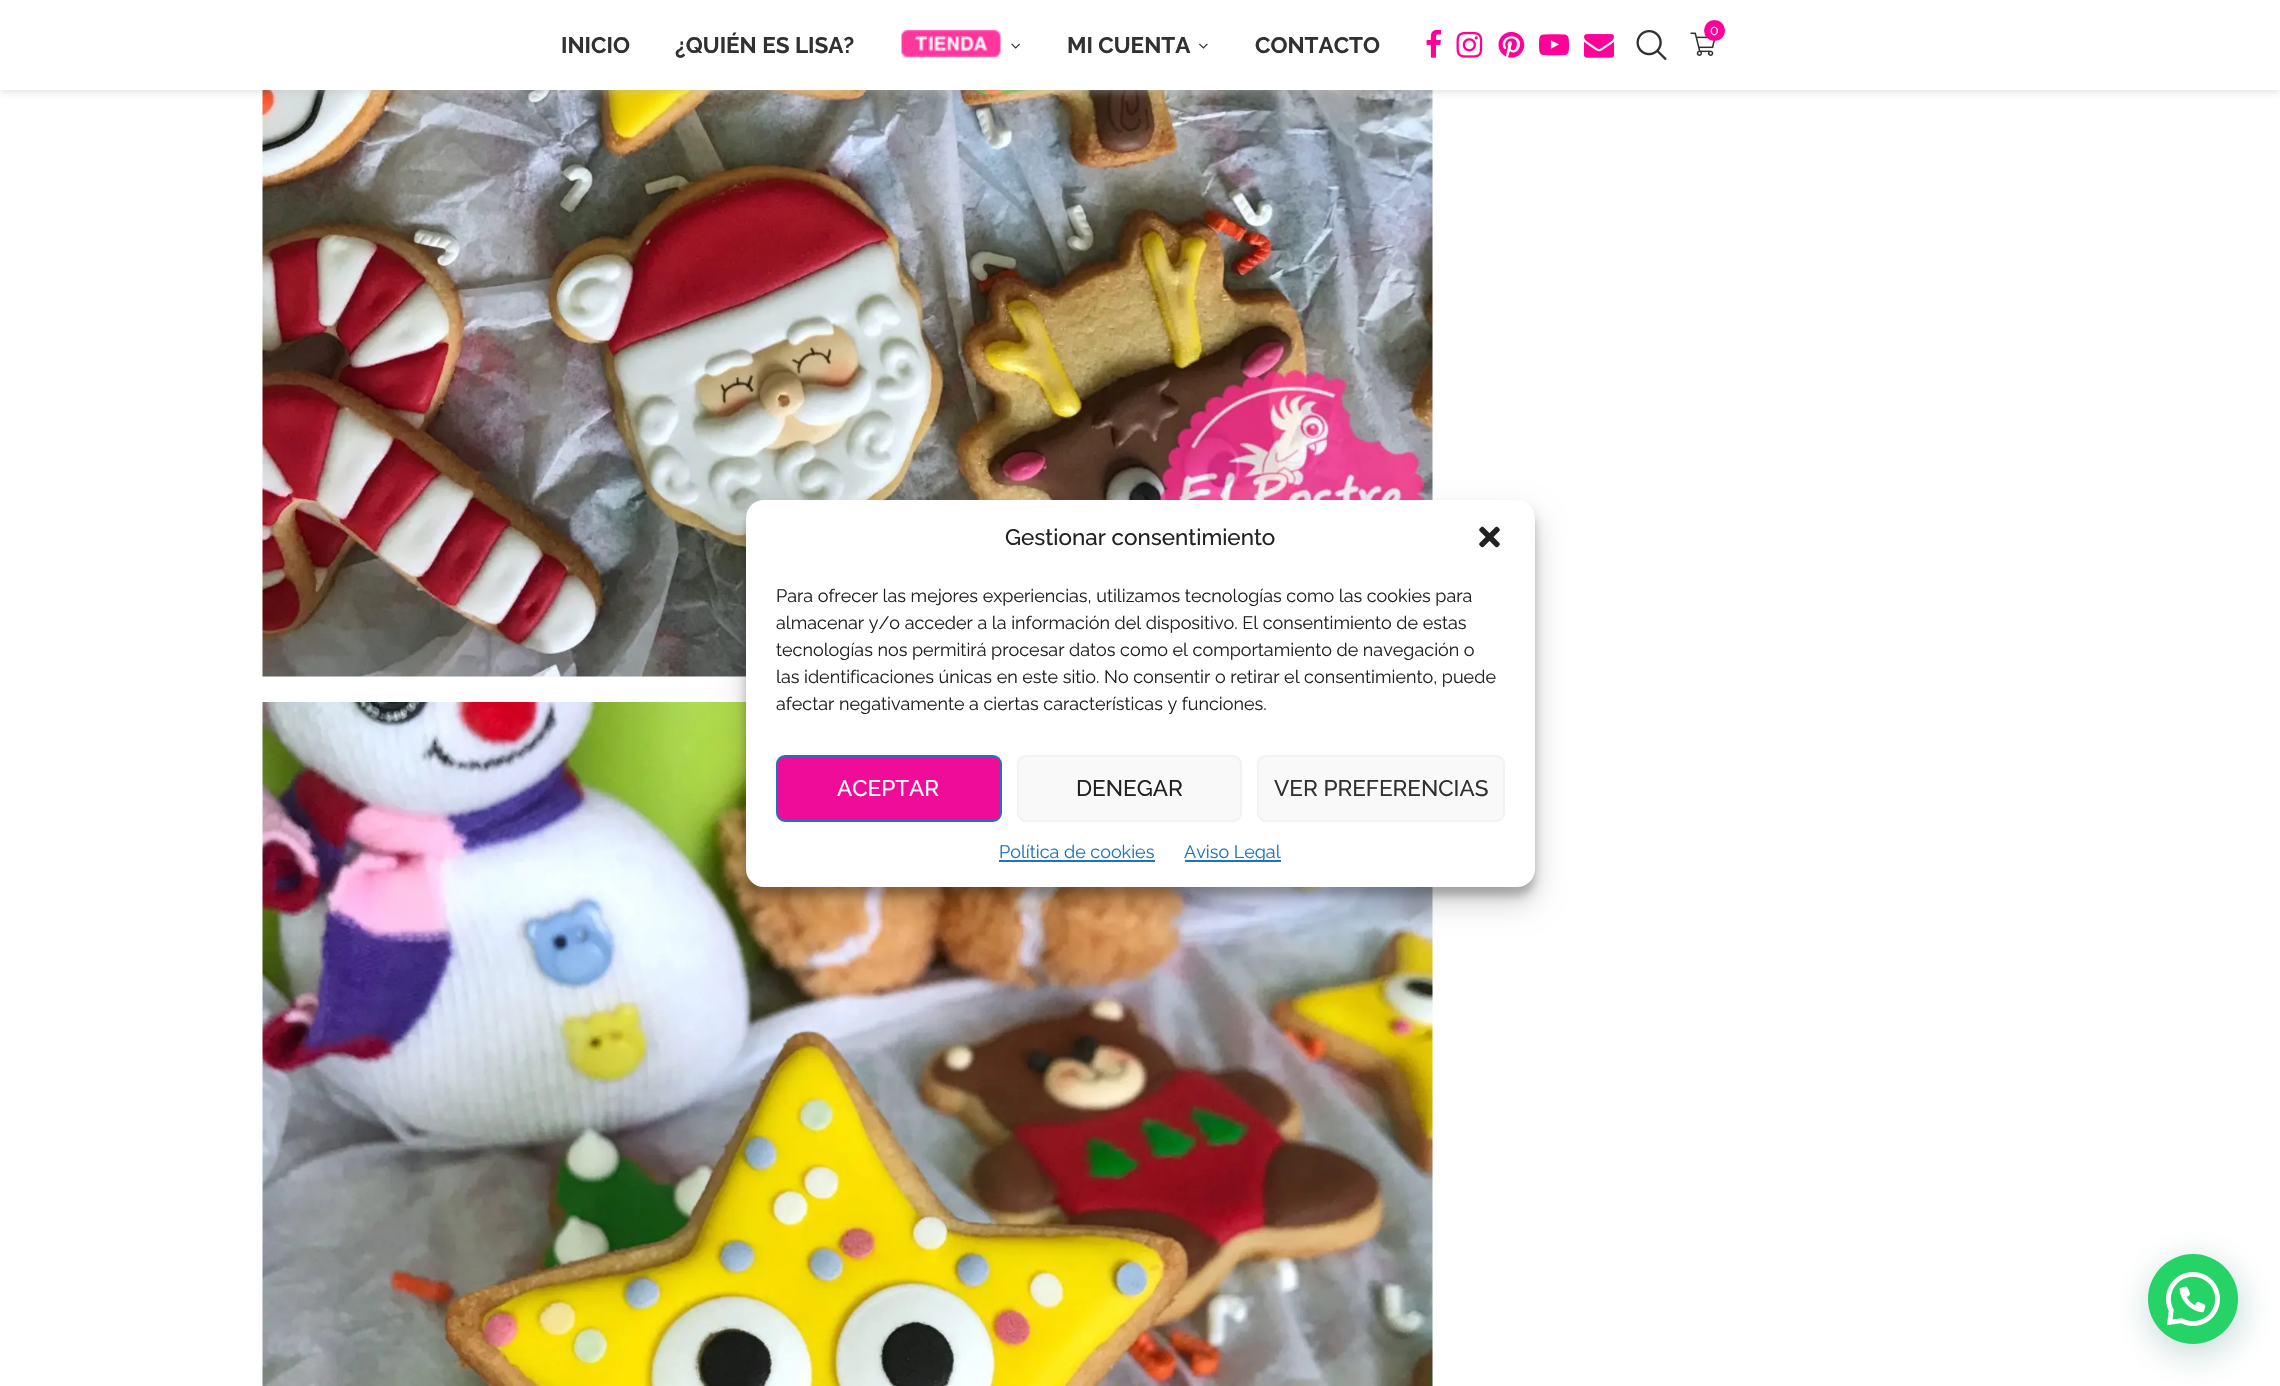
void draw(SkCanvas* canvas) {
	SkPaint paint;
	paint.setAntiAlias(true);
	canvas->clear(0xffffffff);
	canvas->drawImageRect(SkImages::DeferredFromEncodedData(SkData::MakeFromFileName("img11.png")), SkRect::MakeXYWH(262, 90, 1171, 587), SkSamplingOptions());
	paint.setColor(0x75bebebe);
	paint.setMaskFilter(SkMaskFilter::MakeBlur(kNormal_SkBlurStyle, 4));
	canvas->drawRect(SkRect::MakeXYWH(0, 2, 2280, 90), paint);
	paint.setMaskFilter(nullptr);
	paint.setColor(0xffffffff);
	canvas->drawRect(SkRect::MakeXYWH(0, 0, 2280, 90), paint);
	SkFont f1(fontMgr->matchFamilyStyle("Raleway", SkFontStyle::Bold()), 22.5);
	f1.setSubpixel(true);
	paint.setColor(0xff313131);
	canvas->drawString("INICIO", 561, 53, f1, paint);
	canvas->drawString("¿QUIÉN ES LISA?", 675, 53, f1, paint);
	canvas->drawImageRect(SkImages::DeferredFromEncodedData(SkData::MakeFromFileName("img1.png")), SkRect::MakeXYWH(901, 29, 100, 29), SkSamplingOptions());
	canvas->drawImageRect(SkImages::DeferredFromEncodedData(SkData::MakeFromFileName("img2.png")), SkRect::MakeXYWH(1011, 43, 9, 6), SkSamplingOptions());
	canvas->drawString("MI CUENTA", 1067, 53, f1, paint);
	canvas->drawImageRect(SkImages::DeferredFromEncodedData(SkData::MakeFromFileName("img3.png")), SkRect::MakeXYWH(1199, 43, 9, 6), SkSamplingOptions());
	canvas->drawString("CONTACTO", 1255, 53, f1, paint);
	canvas->drawImageRect(SkImages::DeferredFromEncodedData(SkData::MakeFromFileName("img4.png")), SkRect::MakeXYWH(1426, 29, 16, 29), SkSamplingOptions());
	canvas->drawImageRect(SkImages::DeferredFromEncodedData(SkData::MakeFromFileName("img5.png")), SkRect::MakeXYWH(1456, 31, 27, 27), SkSamplingOptions());
	canvas->drawImageRect(SkImages::DeferredFromEncodedData(SkData::MakeFromFileName("img6.png")), SkRect::MakeXYWH(1498, 31, 27, 27), SkSamplingOptions());
	canvas->drawImageRect(SkImages::DeferredFromEncodedData(SkData::MakeFromFileName("img7.png")), SkRect::MakeXYWH(1539, 34, 30, 22), SkSamplingOptions());
	canvas->drawImageRect(SkImages::DeferredFromEncodedData(SkData::MakeFromFileName("img8.png")), SkRect::MakeXYWH(1584, 34, 30, 24), SkSamplingOptions());
	canvas->drawImageRect(SkImages::DeferredFromEncodedData(SkData::MakeFromFileName("img9.png")), SkRect::MakeXYWH(1636, 30, 31, 30), SkSamplingOptions());
	canvas->drawImageRect(SkImages::DeferredFromEncodedData(SkData::MakeFromFileName("img10.png")), SkRect::MakeXYWH(1690, 32, 26, 24), SkSamplingOptions());
	paint.setColor(0xffff0098);
	canvas->drawCircle(1714.5, 30.5, 10.5, paint);
	SkFont f2(fontMgr->matchFamilyStyle("Raleway", SkFontStyle::Normal()), 14);
	f2.setSubpixel(true);
	paint.setColor(0xffffffff);
	canvas->drawString("0", 1710, 35, f2, paint);
	canvas->drawImageRect(SkImages::DeferredFromEncodedData(SkData::MakeFromFileName("img12.png")), SkRect::MakeXYWH(262, 702, 1171, 684), SkSamplingOptions());
	paint.setColor(0x3b000000);
	paint.setMaskFilter(SkMaskFilter::MakeBlur(kNormal_SkBlurStyle, 4.5));
	canvas->drawRoundRect(SkRect::MakeXYWH(746, 509, 789, 387), 18, 18, paint);
	paint.setMaskFilter(nullptr);
	paint.setColor(0x30000000);
	paint.setMaskFilter(SkMaskFilter::MakeBlur(kNormal_SkBlurStyle, 15));
	canvas->drawRoundRect(SkRect::MakeXYWH(746, 515, 789, 387), 18, 18, paint);
	paint.setMaskFilter(nullptr);
	paint.setColor(0xffffffff);
	canvas->drawRoundRect(SkRect::MakeXYWH(746, 500, 789, 387), 18, 18, paint);
	SkFont f3(fontMgr->matchFamilyStyle("Raleway", SkFontStyle(500, SkFontStyle::kNormal_Width, SkFontStyle::kUpright_Slant)), 22.5);
	f3.setSubpixel(true);
	paint.setColor(0xff222222);
	canvas->drawString("Gestionar consentimiento", 1005, 545, f3, paint);
	canvas->drawImageRect(SkImages::DeferredFromEncodedData(SkData::MakeFromFileName("img13.png")), SkRect::MakeXYWH(1479, 526, 21, 22), SkSamplingOptions());
	SkFont f4(fontMgr->matchFamilyStyle("Raleway", SkFontStyle::Normal()), 18);
	f4.setSubpixel(true);
	canvas->drawString("Para ofrecer las mejores experiencias, utilizamos tecnologías como las cookies para", 776, 602, f4, paint);
	canvas->drawString("almacenar y/o acceder a la información del dispositivo. El consentimiento de estas", 776, 629, f4, paint);
	canvas->drawString("tecnologías nos permitirá procesar datos como el comportamiento de navegación o", 776, 656, f4, paint);
	canvas->drawString("las identificaciones únicas en este sitio. No consentir o retirar el consentimiento, puede", 776, 683, f4, paint);
	canvas->drawString("afectar negativamente a ciertas características y funciones.", 776, 710, f4, paint);
	paint.setColor(0xffef0c99);
	canvas->drawRoundRect(SkRect::MakeXYWH(777, 756, 224, 65), 8, 8, paint);
	paint.setStroke(true);
	paint.setStrokeWidth(2);
	paint.setColor(0xff1e73be);
	canvas->drawRoundRect(SkRect::MakeXYWH(777, 756, 224, 65), 8, 8, paint);
	paint.setStroke(false);
	paint.setColor(0xffffffff);
	canvas->drawString("ACEPTAR", 837, 796, f3, paint);
	paint.setColor(0xfff9f9f9);
	canvas->drawRoundRect(SkRect::MakeXYWH(1018, 756, 223, 65), 8, 8, paint);
	paint.setStroke(true);
	paint.setColor(0xfff2f2f2);
	canvas->drawRoundRect(SkRect::MakeXYWH(1018, 756, 223, 65), 8, 8, paint);
	paint.setStroke(false);
	paint.setColor(0xff222222);
	canvas->drawString("DENEGAR", 1076, 796, f3, paint);
	paint.setColor(0xfff9f9f9);
	canvas->drawRoundRect(SkRect::MakeXYWH(1258, 756, 246, 65), 8, 8, paint);
	paint.setStroke(true);
	paint.setColor(0xfff2f2f2);
	canvas->drawRoundRect(SkRect::MakeXYWH(1258, 756, 246, 65), 8, 8, paint);
	paint.setStroke(false);
	paint.setColor(0xff313131);
	canvas->drawString("VER PREFERENCIAS", 1274, 796, f3, paint);
	paint.setColor(0xff1e73be);
	canvas->drawString("Política de cookies", 999, 858, f4, paint);
	canvas->drawRect(SkRect::MakeXYWH(999, 860, 156, 2), paint);
	canvas->drawRect(SkRect::MakeXYWH(1185, 860, 96, 2), paint);
	canvas->drawString("Aviso Legal", 1184, 858, f4, paint);
	paint.setColor(0x3d075e54);
	paint.setMaskFilter(SkMaskFilter::MakeBlur(kNormal_SkBlurStyle, 18));
	canvas->drawRoundRect(SkRect::MakeXYWH(2150, 1263, 90, 90), 45, 45, paint);
	paint.setMaskFilter(nullptr);
	paint.setColor(0xff25d366);
	canvas->drawCircle(2193, 1299, 45, paint);
	canvas->drawImageRect(SkImages::DeferredFromEncodedData(SkData::MakeFromFileName("img14.png")), SkRect::MakeXYWH(2166, 1272, 54, 54), SkSamplingOptions());
}
